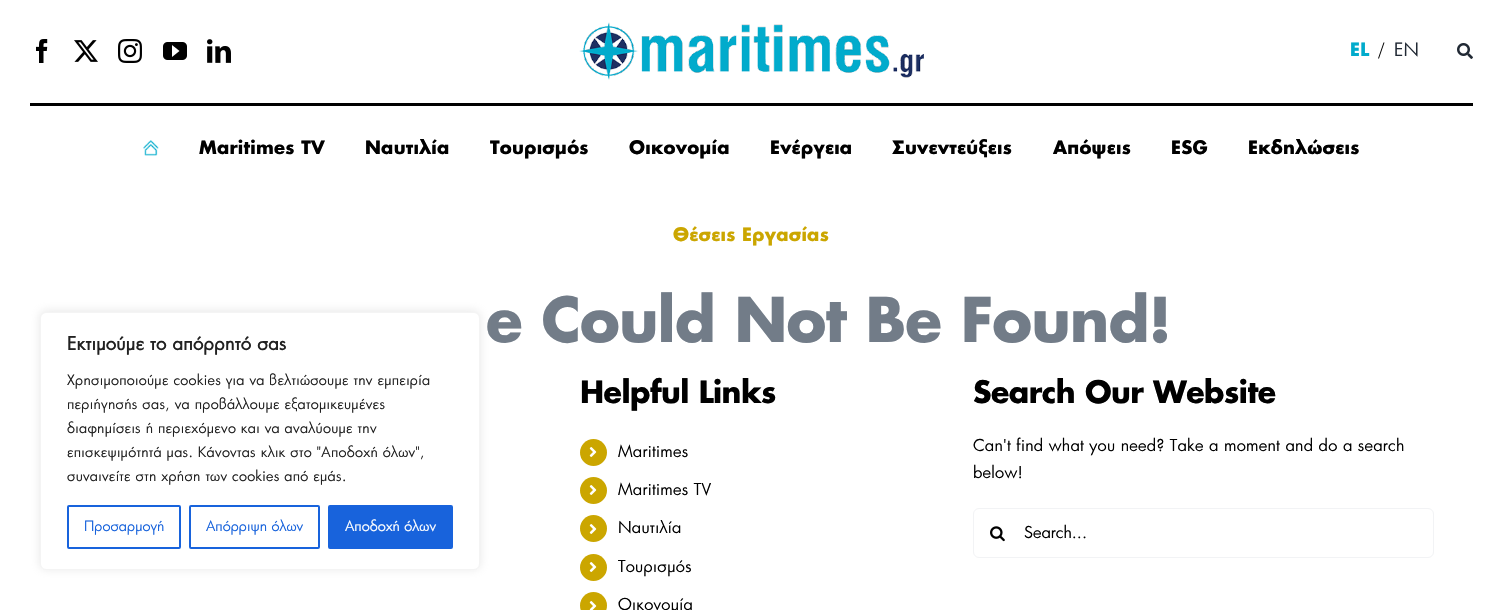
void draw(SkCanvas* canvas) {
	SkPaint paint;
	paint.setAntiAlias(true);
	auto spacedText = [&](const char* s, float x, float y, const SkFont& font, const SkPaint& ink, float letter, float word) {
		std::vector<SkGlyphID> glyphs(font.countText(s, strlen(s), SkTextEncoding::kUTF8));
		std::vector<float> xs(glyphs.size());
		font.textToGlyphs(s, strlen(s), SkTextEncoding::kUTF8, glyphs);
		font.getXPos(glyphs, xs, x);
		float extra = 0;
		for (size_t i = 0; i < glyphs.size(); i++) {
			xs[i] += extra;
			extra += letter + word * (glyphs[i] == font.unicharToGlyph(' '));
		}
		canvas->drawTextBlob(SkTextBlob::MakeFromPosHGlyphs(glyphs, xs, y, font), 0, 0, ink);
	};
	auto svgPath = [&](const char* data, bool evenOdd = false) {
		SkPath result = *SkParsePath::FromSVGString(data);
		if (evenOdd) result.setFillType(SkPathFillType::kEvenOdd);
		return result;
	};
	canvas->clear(0xffffffff);
	canvas->drawImageRect(SkImages::DeferredFromEncodedData(SkData::MakeFromFileName("img1.png")), SkRect::MakeXYWH(36, 39, 12, 24), SkSamplingOptions());
	canvas->drawImageRect(SkImages::DeferredFromEncodedData(SkData::MakeFromFileName("img2.png")), SkRect::MakeXYWH(74, 40, 24, 22), SkSamplingOptions());
	canvas->drawImageRect(SkImages::DeferredFromEncodedData(SkData::MakeFromFileName("img3.png")), SkRect::MakeXYWH(118, 39, 24, 24), SkSamplingOptions());
	canvas->drawImageRect(SkImages::DeferredFromEncodedData(SkData::MakeFromFileName("img4.png")), SkRect::MakeXYWH(163, 42, 24, 18), SkSamplingOptions());
	canvas->drawImageRect(SkImages::DeferredFromEncodedData(SkData::MakeFromFileName("img5.png")), SkRect::MakeXYWH(207, 39, 24, 24), SkSamplingOptions());
	canvas->drawImageRect(SkImages::DeferredFromEncodedData(SkData::MakeFromFileName("img6.png")), SkRect::MakeXYWH(579, 22, 345, 58), SkSamplingOptions());
	SkFont f1(fontMgr->matchFamilyStyle("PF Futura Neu", SkFontStyle::Bold()), 18);
	f1.setSubpixel(true);
	paint.setColor(0xff01abcc);
	spacedText("EL", 1350, 56, f1, paint, 0.25, 0);
	paint.setColor(0xff000000);
	canvas->drawPath(svgPath("M1383.5 42.5H1384.5L1379 58.5H1378Z"), paint);
	SkFont f2(fontMgr->matchFamilyStyle("PF Futura Neu", SkFontStyle::Normal()), 18);
	f2.setSubpixel(true);
	paint.setColor(0xff212934);
	spacedText("EN", 1394, 56, f2, paint, 0.25, 0);
	canvas->drawImageRect(SkImages::DeferredFromEncodedData(SkData::MakeFromFileName("img7.png")), SkRect::MakeXYWH(1457, 43, 16, 16), SkSamplingOptions());
	paint.setColor(0xff000000);
	canvas->drawRect(SkRect::MakeXYWH(30, 103, 1443, 3), paint);
	canvas->drawImageRect(SkImages::DeferredFromEncodedData(SkData::MakeFromFileName("img8.png")), SkRect::MakeXYWH(143, 140, 16, 16), SkSamplingOptions());
	spacedText("Maritimes TV", 199, 154, f1, paint, 0.25, 0);
	spacedText("Ναυτιλία", 365, 154, f1, paint, 0.25, 0);
	spacedText("Τουρισμός", 490, 154, f1, paint, 0.25, 0);
	spacedText("Οικονομία", 629, 154, f1, paint, 0.25, 0);
	spacedText("Ενέργεια", 770, 154, f1, paint, 0.25, 0);
	spacedText("Συνεντεύξεις", 892, 154, f1, paint, 0.25, 0);
	spacedText("Απόψεις", 1053, 154, f1, paint, 0.25, 0);
	spacedText("ESG", 1171, 154, f1, paint, 0.25, 0);
	spacedText("Εκδηλώσεις", 1248, 154, f1, paint, 0.25, 0);
	paint.setColor(0xffcba600);
	spacedText("Θέσεις Εργασίας", 673, 241, f1, paint, 0.25, 0);
	SkFont f3(fontMgr->matchFamilyStyle("PF Futura Neu", SkFontStyle::Bold()), 60);
	f3.setSubpixel(true);
	paint.setColor(0xff727c88);
	spacedText("e Could Not Be Found!", 486, 342, f3, paint, -0.9, 0);
	SkFont f4(fontMgr->matchFamilyStyle("PF Futura Neu", SkFontStyle::Bold()), 30);
	f4.setSubpixel(true);
	paint.setColor(0xff000000);
	spacedText("Helpful Links", 580, 403, f4, paint, -0.5, 0);
	paint.setColor(0xffcba600);
	canvas->drawCircle(593.5, 452.5, 13.5, paint);
	canvas->drawImageRect(SkImages::DeferredFromEncodedData(SkData::MakeFromFileName("img9.png")), SkRect::MakeXYWH(589, 447, 8, 10), SkSamplingOptions());
	SkFont f5(fontMgr->matchFamilyStyle("PF Futura Neu", SkFontStyle::Normal()), 16);
	f5.setSubpixel(true);
	paint.setColor(0xff000000);
	spacedText("Maritimes", 618, 457, f5, paint, 0.25, 0);
	paint.setColor(0xffcba600);
	canvas->drawCircle(593.5, 490.5, 13.5, paint);
	canvas->drawImageRect(SkImages::DeferredFromEncodedData(SkData::MakeFromFileName("img9.png")), SkRect::MakeXYWH(589, 485, 8, 10), SkSamplingOptions());
	paint.setColor(0xff000000);
	spacedText("Maritimes TV", 618, 495, f5, paint, 0.25, 0);
	paint.setColor(0xffcba600);
	canvas->drawCircle(593.5, 528.5, 13.5, paint);
	canvas->drawImageRect(SkImages::DeferredFromEncodedData(SkData::MakeFromFileName("img9.png")), SkRect::MakeXYWH(589, 524, 8, 10), SkSamplingOptions());
	paint.setColor(0xff000000);
	spacedText("Ναυτιλία", 618, 533, f5, paint, 0.25, 0);
	paint.setColor(0xffcba600);
	canvas->drawCircle(593.5, 567.5, 13.5, paint);
	canvas->drawImageRect(SkImages::DeferredFromEncodedData(SkData::MakeFromFileName("img9.png")), SkRect::MakeXYWH(589, 562, 8, 10), SkSamplingOptions());
	paint.setColor(0xff000000);
	spacedText("Τουρισμός", 618, 572, f5, paint, 0.25, 0);
	paint.setColor(0xffcba600);
	canvas->drawCircle(593.5, 605.5, 13.5, paint);
	canvas->drawImageRect(SkImages::DeferredFromEncodedData(SkData::MakeFromFileName("img10.png")), SkRect::MakeXYWH(589, 601, 8, 9), SkSamplingOptions());
	paint.setColor(0xff000000);
	spacedText("Οικονομία", 618, 610, f5, paint, 0.25, 0);
	spacedText("Search Our Website", 973, 403, f4, paint, -0.5, 0);
	spacedText("Can't find what you need? Take a moment and do a search", 973, 451, f5, paint, 0.25, 0);
	spacedText("below!", 973, 478, f5, paint, 0.25, 0);
	paint.setStroke(true);
	paint.setStrokeWidth(1);
	paint.setColor(0xfff2f3f5);
	canvas->drawRoundRect(SkRect::MakeXYWH(973.5, 508.5, 460, 49), 5.5, 5.5, paint);
	canvas->drawImageRect(SkImages::DeferredFromEncodedData(SkData::MakeFromFileName("img11.png")), SkRect::MakeXYWH(990, 526, 15, 16), SkSamplingOptions());
	paint.setStroke(false);
	paint.setColor(0xff000000);
	canvas->drawString("Search...", 1024, 538, f5, paint);
	paint.setColor(0x4dacabab);
	paint.setMaskFilter(SkMaskFilter::MakeBlur(kNormal_SkBlurStyle, 5));
	canvas->drawRoundRect(SkRect::MakeXYWH(40, 311, 440, 258), 6, 6, paint);
	paint.setMaskFilter(nullptr);
	paint.setColor(0xffffffff);
	canvas->drawRoundRect(SkRect::MakeXYWH(40.5, 312.5, 439, 257), 5.5, 5.5, paint);
	paint.setStroke(true);
	paint.setColor(0xfff4f4f4);
	canvas->drawRoundRect(SkRect::MakeXYWH(40.5, 312.5, 439, 257), 5.5, 5.5, paint);
	SkFont f6(fontMgr->matchFamilyStyle("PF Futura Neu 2", SkFontStyle::Bold()), 18);
	f6.setSubpixel(true);
	paint.setStroke(false);
	paint.setColor(0xff212121);
	spacedText("Εκτιμούμε το απόρρητό σας", 67, 350, f6, paint, 0.25, 0);
	SkFont f7(fontMgr->matchFamilyStyle("PF Futura Neu", SkFontStyle::Normal()), 14);
	f7.setSubpixel(true);
	spacedText("Χρησιμοποιούμε cookies για να βελτιώσουμε την εμπειρία", 67, 385, f7, paint, 0.25, 0);
	spacedText("περιήγησής σας, να προβάλλουμε εξατομικευμένες", 67, 409, f7, paint, 0.25, 0);
	spacedText("διαφημίσεις ή περιεχόμενο και να αναλύουμε την", 67, 433, f7, paint, 0.25, 0);
	spacedText("επισκεψιμότητά μας. Κάνοντας κλικ στο \"Αποδοχή όλων\",", 67, 457, f7, paint, 0.25, 0);
	spacedText("συναινείτε στη χρήση των cookies από εμάς.", 67, 481, f7, paint, 0.25, 0);
	paint.setStroke(true);
	paint.setStrokeWidth(2);
	paint.setColor(0xff1863dc);
	canvas->drawRoundRect(SkRect::MakeXYWH(68, 506, 112, 42), 1, 1, paint);
	paint.setStroke(false);
	canvas->drawString("Προσαρμογή", 84, 531, f7, paint);
	paint.setStroke(true);
	canvas->drawRoundRect(SkRect::MakeXYWH(190, 506, 129, 42), 1, 1, paint);
	paint.setStroke(false);
	canvas->drawString("Απόρριψη όλων", 206, 531, f7, paint);
	canvas->drawRoundRect(SkRect::MakeXYWH(329, 506, 123, 42), 1, 1, paint);
	paint.setStroke(true);
	canvas->drawRoundRect(SkRect::MakeXYWH(329, 506, 123, 42), 1, 1, paint);
	paint.setStroke(false);
	paint.setColor(0xffffffff);
	canvas->drawString("Αποδοχή όλων", 345, 531, f7, paint);
}
